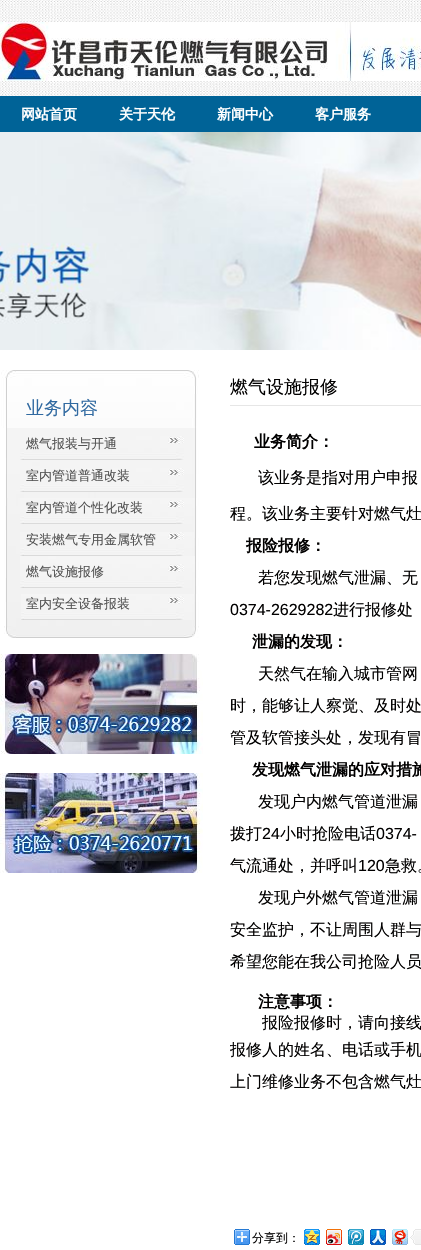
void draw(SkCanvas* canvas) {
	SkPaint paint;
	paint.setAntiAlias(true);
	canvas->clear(0xffffffff);
	canvas->drawImageRect(SkImages::DeferredFromEncodedData(SkData::MakeFromFileName("img1.png")), SkRect::MakeXYWH(0, 0, 421, 96), SkSamplingOptions());
	canvas->drawImageRect(SkImages::DeferredFromEncodedData(SkData::MakeFromFileName("img2.png")), SkRect::MakeXYWH(0, 22, 421, 59), SkSamplingOptions());
	paint.setColor(0xff006397);
	canvas->drawRect(SkRect::MakeXYWH(0, 96, 421, 36), paint);
	SkFont f1(fontMgr->matchFamilyStyle("WenQuanYi Zen Hei", SkFontStyle::Bold()), 14);
	f1.setSubpixel(true);
	paint.setColor(0xffffffff);
	canvas->drawString("网站首页", 21, 119, f1, paint);
	canvas->drawString("关于天伦", 119, 119, f1, paint);
	canvas->drawString("新闻中心", 217, 119, f1, paint);
	canvas->drawString("客户服务", 315, 119, f1, paint);
	canvas->drawImageRect(SkImages::DeferredFromEncodedData(SkData::MakeFromFileName("img3.png")), SkRect::MakeXYWH(0, 132, 421, 218), SkSamplingOptions());
	canvas->drawImageRect(SkImages::DeferredFromEncodedData(SkData::MakeFromFileName("img4.png")), SkRect::MakeXYWH(1, 370, 198, 58), SkSamplingOptions());
	SkFont f2(fontMgr->matchFamilyStyle("WenQuanYi Zen Hei", SkFontStyle(500, SkFontStyle::kNormal_Width, SkFontStyle::kUpright_Slant)), 18);
	f2.setSubpixel(true);
	paint.setColor(0xff316aa1);
	canvas->drawString("业务内容", 26, 414, f2, paint);
	canvas->drawImageRect(SkImages::DeferredFromEncodedData(SkData::MakeFromFileName("img5.png")), SkRect::MakeXYWH(4, 428, 195, 210), SkSamplingOptions());
	canvas->drawImageRect(SkImages::DeferredFromEncodedData(SkData::MakeFromFileName("img6.png")), SkRect::MakeXYWH(20, 436, 164, 24), SkSamplingOptions());
	SkFont f3(fontMgr->matchFamilyStyle("WenQuanYi Zen Hei", SkFontStyle(500, SkFontStyle::kNormal_Width, SkFontStyle::kUpright_Slant)), 13);
	f3.setSubpixel(true);
	paint.setColor(0xff535353);
	canvas->drawString("燃气报装与开通", 26, 448, f3, paint);
	canvas->drawImageRect(SkImages::DeferredFromEncodedData(SkData::MakeFromFileName("img6.png")), SkRect::MakeXYWH(20, 468, 164, 24), SkSamplingOptions());
	canvas->drawString("室内管道普通改装", 26, 480, f3, paint);
	canvas->drawImageRect(SkImages::DeferredFromEncodedData(SkData::MakeFromFileName("img7.png")), SkRect::MakeXYWH(20, 498, 175, 26), SkSamplingOptions());
	canvas->drawString("室内管道个性化改装", 26, 512, f3, paint);
	canvas->drawImageRect(SkImages::DeferredFromEncodedData(SkData::MakeFromFileName("img8.png")), SkRect::MakeXYWH(20, 532, 174, 24), SkSamplingOptions());
	canvas->drawString("安装燃气专用金属软管", 26, 544, f3, paint);
	canvas->drawImageRect(SkImages::DeferredFromEncodedData(SkData::MakeFromFileName("img9.png")), SkRect::MakeXYWH(20, 556, 175, 32), SkSamplingOptions());
	canvas->drawString("燃气设施报修", 26, 576, f3, paint);
	canvas->drawImageRect(SkImages::DeferredFromEncodedData(SkData::MakeFromFileName("img10.png")), SkRect::MakeXYWH(21, 594, 173, 26), SkSamplingOptions());
	canvas->drawString("室内安全设备报装", 26, 608, f3, paint);
	canvas->drawImageRect(SkImages::DeferredFromEncodedData(SkData::MakeFromFileName("img11.png")), SkRect::MakeXYWH(0, 654, 203, 100), SkSamplingOptions());
	canvas->drawImageRect(SkImages::DeferredFromEncodedData(SkData::MakeFromFileName("img12.png")), SkRect::MakeXYWH(0, 773, 203, 100), SkSamplingOptions());
	paint.setColor(0xffe6e6e6);
	canvas->drawRect(SkRect::MakeXYWH(230, 405, 191, 1), paint);
	paint.setColor(0xff010000);
	canvas->drawString("燃气设施报修", 230, 393, f2, paint);
	SkFont f4(fontMgr->matchFamilyStyle("WenQuanYi Zen Hei", SkFontStyle::Bold()), 16);
	f4.setSubpixel(true);
	canvas->drawString("业务简介：", 254, 447, f4, paint);
	SkFont f5(fontMgr->matchFamilyStyle("WenQuanYi Zen Hei", SkFontStyle(500, SkFontStyle::kNormal_Width, SkFontStyle::kUpright_Slant)), 16);
	f5.setSubpixel(true);
	canvas->drawString("该业务是指对用户申报", 258, 483, f5, paint);
	canvas->drawString("程。该业务主要针对燃气灶", 230, 519, f5, paint);
	canvas->drawString("报险报修：", 246, 551, f4, paint);
	canvas->drawString("若您发现燃气泄漏、无", 258, 583, f5, paint);
	SkFont f6(fontMgr->matchFamilyStyle("Liberation Sans", SkFontStyle::Normal()), 16);
	f6.setSubpixel(true);
	canvas->drawString("0374-2629282", 230, 615, f6, paint);
	canvas->drawString("进行报修处", 333, 615, f5, paint);
	canvas->drawString("泄漏的发现：", 252, 647, f4, paint);
	canvas->drawString("天然气在输入城市管网", 258, 679, f5, paint);
	canvas->drawString("时，能够让人察觉、及时处", 230, 711, f5, paint);
	canvas->drawString("管及软管接头处，发现有冒", 230, 743, f5, paint);
	canvas->drawString("发现燃气泄漏的应对措施", 252, 775, f4, paint);
	canvas->drawString("发现户内燃气管道泄漏", 258, 807, f5, paint);
	canvas->drawString("拨打", 230, 839, f5, paint);
	canvas->drawString("24", 262, 839, f6, paint);
	canvas->drawString("小时抢险电话", 280, 839, f5, paint);
	canvas->drawString("0374-", 376, 839, f6, paint);
	canvas->drawString("气流通处，并呼叫", 230, 871, f5, paint);
	canvas->drawString("120", 358, 871, f6, paint);
	canvas->drawString("急救。", 385, 871, f5, paint);
	canvas->drawString("发现户外燃气管道泄漏", 258, 903, f5, paint);
	canvas->drawString("安全监护，不让周围人群与", 230, 935, f5, paint);
	canvas->drawString("希望您能在我公司抢险人员", 230, 967, f5, paint);
	canvas->drawString("注意事项：", 258, 1007, f4, paint);
	canvas->drawString("报险报修时，请向接线", 262, 1028, f5, paint);
	canvas->drawString("报修人的姓名、电话或手机", 230, 1055, f5, paint);
	canvas->drawString("上门维修业务不包含燃气灶", 230, 1087, f5, paint);
	canvas->drawImageRect(SkImages::DeferredFromEncodedData(SkData::MakeFromFileName("img13.png")), SkRect::MakeXYWH(234, 1229, 16, 16), SkSamplingOptions());
	SkFont f7(fontMgr->matchFamilyStyle("WenQuanYi Zen Hei", SkFontStyle(500, SkFontStyle::kNormal_Width, SkFontStyle::kUpright_Slant)), 12);
	f7.setSubpixel(true);
	canvas->drawString("分享到：", 252, 1242, f7, paint);
	canvas->drawImageRect(SkImages::DeferredFromEncodedData(SkData::MakeFromFileName("img14.png")), SkRect::MakeXYWH(304, 1229, 16, 16), SkSamplingOptions());
	canvas->drawImageRect(SkImages::DeferredFromEncodedData(SkData::MakeFromFileName("img15.png")), SkRect::MakeXYWH(326, 1229, 16, 16), SkSamplingOptions());
	canvas->drawImageRect(SkImages::DeferredFromEncodedData(SkData::MakeFromFileName("img16.png")), SkRect::MakeXYWH(348, 1229, 16, 16), SkSamplingOptions());
	canvas->drawImageRect(SkImages::DeferredFromEncodedData(SkData::MakeFromFileName("img17.png")), SkRect::MakeXYWH(370, 1229, 16, 16), SkSamplingOptions());
	canvas->drawImageRect(SkImages::DeferredFromEncodedData(SkData::MakeFromFileName("img18.png")), SkRect::MakeXYWH(392, 1229, 16, 16), SkSamplingOptions());
	canvas->drawImageRect(SkImages::DeferredFromEncodedData(SkData::MakeFromFileName("img19.png")), SkRect::MakeXYWH(410, 1229, 11, 16), SkSamplingOptions());
}
